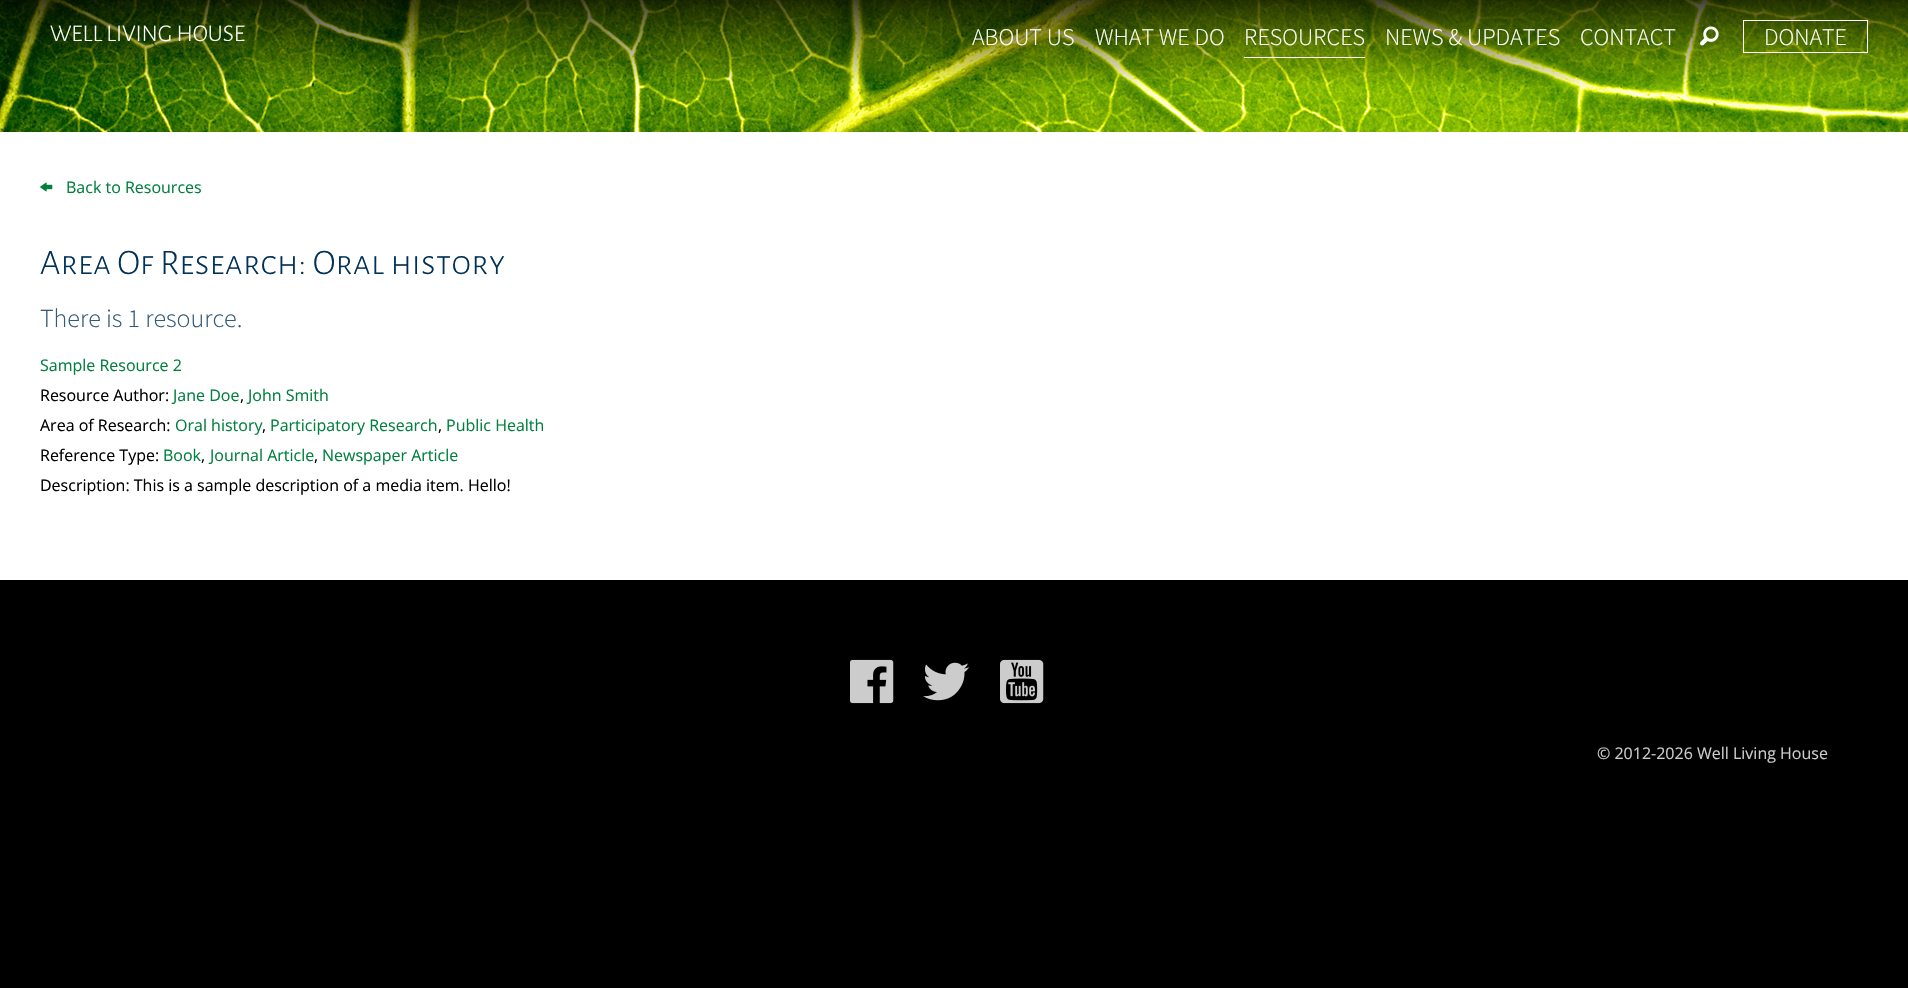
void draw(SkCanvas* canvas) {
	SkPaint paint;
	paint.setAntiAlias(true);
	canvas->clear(0xff000000);
	canvas->drawImageRect(SkImages::DeferredFromEncodedData(SkData::MakeFromFileName("img2.png")), SkRect::MakeXYWH(0, 0, 1908, 132), SkSamplingOptions());
	SkFont f1(fontMgr->matchFamilyStyle("Alegreya Sans SC", SkFontStyle(300, SkFontStyle::kNormal_Width, SkFontStyle::kUpright_Slant)), 24);
	f1.setSubpixel(true);
	paint.setColor(0xffffffff);
	canvas->drawString("WELL LIVING HOUSE", 50, 41, f1, paint);
	SkFont f2(fontMgr->matchFamilyStyle("Source Sans Pro", SkFontStyle(300, SkFontStyle::kNormal_Width, SkFontStyle::kUpright_Slant)), 24);
	f2.setSubpixel(true);
	canvas->drawString("ABOUT US", 972, 45, f2, paint);
	canvas->drawString("WHAT WE DO", 1095, 45, f2, paint);
	canvas->drawString("RESOURCES", 1244, 45, f2, paint);
	canvas->drawRect(SkRect::MakeXYWH(1244, 57, 121, 1), paint);
	canvas->drawString("NEWS & UPDATES", 1385, 45, f2, paint);
	canvas->drawString("CONTACT", 1580, 45, f2, paint);
	canvas->drawImageRect(SkImages::DeferredFromEncodedData(SkData::MakeFromFileName("img1.png")), SkRect::MakeXYWH(1700, 26, 19, 20), SkSamplingOptions());
	paint.setStroke(true);
	paint.setStrokeWidth(1);
	canvas->drawRect(SkRect::MakeXYWH(1743.5, 20.5, 124, 32), paint);
	paint.setStroke(false);
	canvas->drawString("DONATE", 1764, 45, f2, paint);
	canvas->drawRect(SkRect::MakeXYWH(0, 132, 1908, 448), paint);
	canvas->drawImageRect(SkImages::DeferredFromEncodedData(SkData::MakeFromFileName("img3.png")), SkRect::MakeXYWH(40, 182, 13, 10), SkSamplingOptions());
	SkFont f3(fontMgr->matchFamilyStyle("Open Sans", SkFontStyle::Normal()), 16);
	f3.setSubpixel(true);
	paint.setColor(0xff01803d);
	canvas->drawString("Back to Resources", 66, 193, f3, paint);
	SkFont f4(fontMgr->matchFamilyStyle("Alegreya Sans SC", SkFontStyle(300, SkFontStyle::kNormal_Width, SkFontStyle::kUpright_Slant)), 36);
	f4.setSubpixel(true);
	paint.setColor(0xff003158);
	canvas->drawString("Area Of Research: Oral history", 40, 274, f4, paint);
	SkFont f5(fontMgr->matchFamilyStyle("Source Sans Pro", SkFontStyle(300, SkFontStyle::kNormal_Width, SkFontStyle::kUpright_Slant)), 26);
	f5.setSubpixel(true);
	paint.setColor(0xff335a79);
	canvas->drawString("There is 1 resource.", 40, 327, f5, paint);
	paint.setColor(0xff01803d);
	canvas->drawString("Sample Resource 2", 40, 371, f3, paint);
	paint.setColor(0xff000000);
	canvas->drawString("Resource Author:", 40, 401, f3, paint);
	paint.setColor(0xff01803d);
	canvas->drawString("Jane Doe", 173, 401, f3, paint);
	paint.setColor(0xff000000);
	canvas->drawString(",", 240, 401, f3, paint);
	paint.setColor(0xff01803d);
	canvas->drawString("John Smith", 248, 401, f3, paint);
	paint.setColor(0xff000000);
	canvas->drawString("Area of Research:", 40, 431, f3, paint);
	paint.setColor(0xff01803d);
	canvas->drawString("Oral history", 175, 431, f3, paint);
	paint.setColor(0xff000000);
	canvas->drawString(",", 262, 431, f3, paint);
	paint.setColor(0xff01803d);
	canvas->drawString("Participatory Research", 270, 431, f3, paint);
	paint.setColor(0xff000000);
	canvas->drawString(",", 438, 431, f3, paint);
	paint.setColor(0xff01803d);
	canvas->drawString("Public Health", 446, 431, f3, paint);
	paint.setColor(0xff000000);
	canvas->drawString("Reference Type:", 40, 461, f3, paint);
	paint.setColor(0xff01803d);
	canvas->drawString("Book", 163, 461, f3, paint);
	paint.setColor(0xff000000);
	canvas->drawString(",", 201, 461, f3, paint);
	paint.setColor(0xff01803d);
	canvas->drawString("Journal Article", 210, 461, f3, paint);
	paint.setColor(0xff000000);
	canvas->drawString(",", 314, 461, f3, paint);
	paint.setColor(0xff01803d);
	canvas->drawString("Newspaper Article", 322, 461, f3, paint);
	paint.setColor(0xff000000);
	canvas->drawString("Description: This is a sample description of a media item. Hello!", 40, 491, f3, paint);
	canvas->drawImageRect(SkImages::DeferredFromEncodedData(SkData::MakeFromFileName("img4.png")), SkRect::MakeXYWH(850, 659, 44, 45), SkSamplingOptions());
	canvas->drawImageRect(SkImages::DeferredFromEncodedData(SkData::MakeFromFileName("img5.png")), SkRect::MakeXYWH(923, 662, 46, 39), SkSamplingOptions());
	canvas->drawImageRect(SkImages::DeferredFromEncodedData(SkData::MakeFromFileName("img6.png")), SkRect::MakeXYWH(1000, 659, 44, 45), SkSamplingOptions());
	paint.setColor(0xffcccccc);
	canvas->drawString("© 2012-2026 Well Living House", 1597, 759, f3, paint);
}
